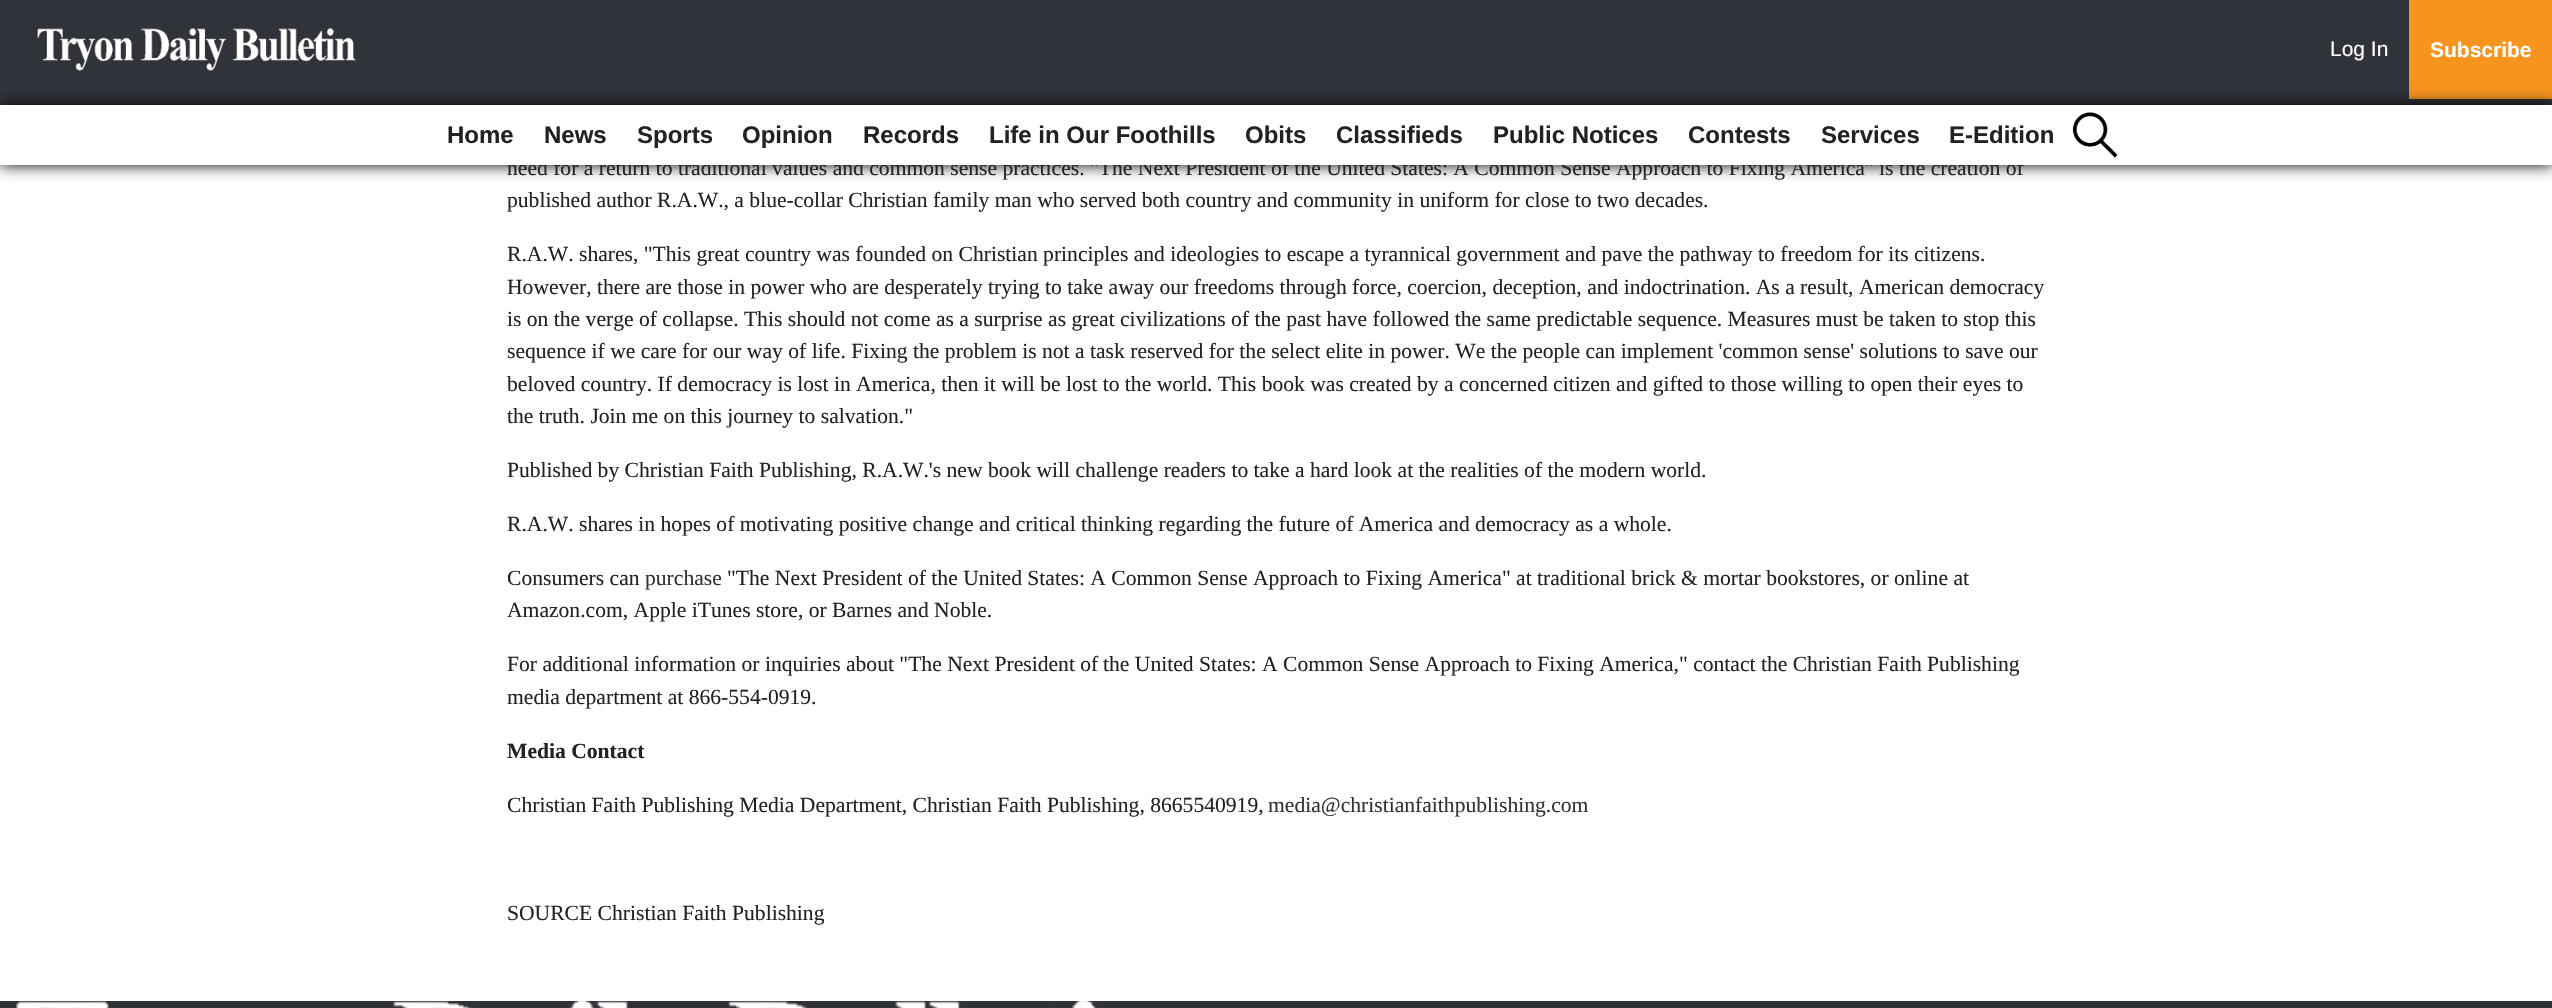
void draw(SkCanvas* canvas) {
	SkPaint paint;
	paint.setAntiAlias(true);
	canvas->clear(0xffffffff);
	paint.setColor(0xff30333a);
	canvas->drawRect(SkRect::MakeXYWH(0, 0, 2552, 105), paint);
	canvas->drawImageRect(SkImages::DeferredFromEncodedData(SkData::MakeFromFileName("img1.png")), SkRect::MakeXYWH(37, 28, 319, 43), SkSamplingOptions());
	SkFont f1(fontMgr->matchFamilyStyle("Liberation Sans", SkFontStyle::Normal()), 21);
	f1.setSubpixel(true);
	paint.setColor(0xffffffff);
	canvas->drawString("Log In", 2330, 56, f1, paint);
	paint.setColor(0xfff7941d);
	canvas->drawRect(SkRect::MakeXYWH(2409, 0, 143, 99), paint);
	SkFont f2(fontMgr->matchFamilyStyle("Liberation Sans", SkFontStyle::Bold()), 21);
	f2.setSubpixel(true);
	paint.setColor(0xffffffff);
	canvas->drawString("Subscribe", 2430, 57, f2, paint);
	paint.setColor(0xff000000);
	paint.setMaskFilter(SkMaskFilter::MakeBlur(kNormal_SkBlurStyle, 7.5));
	canvas->drawRect(SkRect::MakeXYWH(0, 105, 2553, 60), paint);
	paint.setMaskFilter(nullptr);
	SkFont f3(fontMgr->matchFamilyStyle("Liberation Serif", SkFontStyle::Normal()), 21.6);
	f3.setSubpixel(true);
	paint.setColor(0xff222222);
	canvas->drawString("need for a return to traditional values and common sense practices. \"The Next President of the United States: A Common Sense Approach to Fixing America\" is the creation of", 507, 175, f3, paint);
	paint.setColor(0xffffffff);
	canvas->drawRect(SkRect::MakeXYWH(0, 105, 2552, 60), paint);
	SkFont f4(fontMgr->matchFamilyStyle("Liberation Sans", SkFontStyle::Bold()), 24);
	f4.setSubpixel(true);
	paint.setColor(0xff222222);
	canvas->drawString("Home", 447, 143, f4, paint);
	canvas->drawString("News", 544, 143, f4, paint);
	canvas->drawString("Sports", 637, 143, f4, paint);
	canvas->drawString("Opinion", 742, 143, f4, paint);
	canvas->drawString("Records", 863, 143, f4, paint);
	canvas->drawString("Life in Our Foothills", 989, 143, f4, paint);
	canvas->drawString("Obits", 1245, 143, f4, paint);
	canvas->drawString("Classifieds", 1336, 143, f4, paint);
	canvas->drawString("Public Notices", 1493, 143, f4, paint);
	canvas->drawString("Contests", 1688, 143, f4, paint);
	canvas->drawString("Services", 1821, 143, f4, paint);
	canvas->drawString("E-Edition", 1949, 143, f4, paint);
	canvas->drawImageRect(SkImages::DeferredFromEncodedData(SkData::MakeFromFileName("img2.png")), SkRect::MakeXYWH(2072, 112, 46, 46), SkSamplingOptions());
	canvas->drawString("published author R.A.W., a blue-collar Christian family man who served both country and community in uniform for close to two decades.", 507, 207, f3, paint);
	canvas->drawString("R.A.W. shares, \"This great country was founded on Christian principles and ideologies to escape a tyrannical government and pave the pathway to freedom for its citizens.", 507, 261, f3, paint);
	canvas->drawString("However, there are those in power who are desperately trying to take away our freedoms through force, coercion, deception, and indoctrination. As a result, American democracy", 507, 294, f3, paint);
	canvas->drawString("is on the verge of collapse. This should not come as a surprise as great civilizations of the past have followed the same predictable sequence. Measures must be taken to stop this", 507, 326, f3, paint);
	canvas->drawString("sequence if we care for our way of life. Fixing the problem is not a task reserved for the select elite in power. We the people can implement 'common sense' solutions to save our", 507, 358, f3, paint);
	canvas->drawString("beloved country. If democracy is lost in America, then it will be lost to the world. This book was created by a concerned citizen and gifted to those willing to open their eyes to", 507, 391, f3, paint);
	canvas->drawString("the truth. Join me on this journey to salvation.\"", 507, 423, f3, paint);
	canvas->drawString("Published by Christian Faith Publishing, R.A.W.'s new book will challenge readers to take a hard look at the realities of the modern world.", 507, 477, f3, paint);
	canvas->drawString("R.A.W. shares in hopes of motivating positive change and critical thinking regarding the future of America and democracy as a whole.", 507, 531, f3, paint);
	canvas->drawString("Consumers can", 507, 585, f3, paint);
	paint.setColor(0xff333333);
	canvas->drawString("purchase", 645, 585, f3, paint);
	paint.setColor(0xff222222);
	canvas->drawString("\"The Next President of the United States: A Common Sense Approach to Fixing America\" at traditional brick & mortar bookstores, or online at", 727, 585, f3, paint);
	canvas->drawString("Amazon.com, Apple iTunes store, or Barnes and Noble.", 507, 617, f3, paint);
	canvas->drawString("For additional information or inquiries about \"The Next President of", 507, 671, f3, paint);
	canvas->drawString("the United States: A Common Sense Approach to Fixing America,\" contact the Christian Faith Publishing", 1103, 671, f3, paint);
	canvas->drawString("media department at 866-554-0919.", 507, 704, f3, paint);
	SkFont f5(fontMgr->matchFamilyStyle("Liberation Serif", SkFontStyle::Bold()), 21.6);
	f5.setSubpixel(true);
	canvas->drawString("Media Contact", 507, 758, f5, paint);
	canvas->drawString("Christian Faith Publishing Media Department, Christian Faith Publishing, 8665540919,", 507, 812, f3, paint);
	paint.setColor(0xff333333);
	canvas->drawString("media@christianfaithpublishing.com", 1268, 812, f3, paint);
	paint.setColor(0xff222222);
	canvas->drawString("SOURCE Christian Faith Publishing", 507, 920, f3, paint);
	paint.setColor(0xff30333a);
	canvas->drawRect(SkRect::MakeXYWH(0, 1001, 2552, 7), paint);
	canvas->drawImageRect(SkImages::DeferredFromEncodedData(SkData::MakeFromFileName("img3.png")), SkRect::MakeXYWH(16, 1000, 1081, 8), SkSamplingOptions());
}
